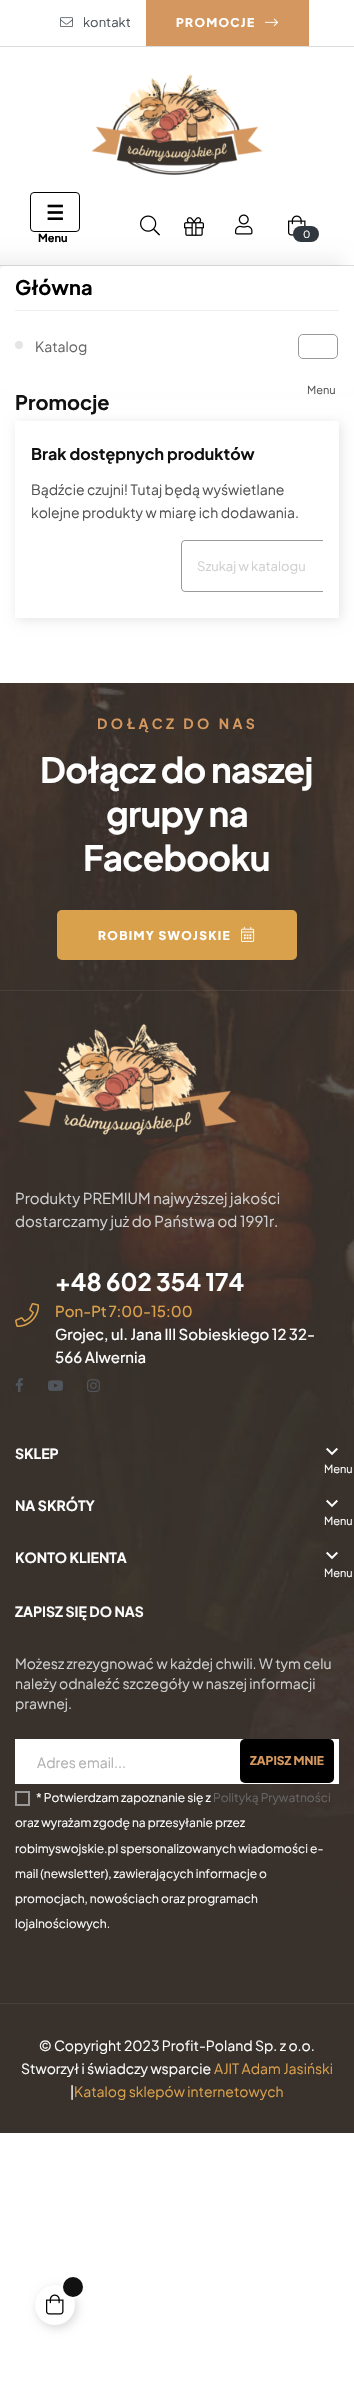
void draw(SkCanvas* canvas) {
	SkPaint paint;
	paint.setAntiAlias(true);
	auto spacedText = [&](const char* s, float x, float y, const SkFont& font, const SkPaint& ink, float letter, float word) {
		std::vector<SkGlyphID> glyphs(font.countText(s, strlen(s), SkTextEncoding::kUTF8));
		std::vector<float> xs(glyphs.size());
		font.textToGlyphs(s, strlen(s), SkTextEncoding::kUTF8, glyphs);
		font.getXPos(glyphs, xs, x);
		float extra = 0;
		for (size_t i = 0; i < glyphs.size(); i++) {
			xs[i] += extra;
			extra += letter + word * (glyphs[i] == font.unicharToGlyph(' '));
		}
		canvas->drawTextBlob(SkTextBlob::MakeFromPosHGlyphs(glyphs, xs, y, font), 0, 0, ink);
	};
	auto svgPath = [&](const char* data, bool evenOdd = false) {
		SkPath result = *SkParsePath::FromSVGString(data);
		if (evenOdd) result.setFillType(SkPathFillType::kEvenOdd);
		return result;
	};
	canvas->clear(0xffffffff);
	paint.setColor(0xffdddddd);
	canvas->drawRect(SkRect::MakeXYWH(0, 46, 354, 1), paint);
	canvas->drawImageRect(SkImages::DeferredFromEncodedData(SkData::MakeFromFileName("img1.png")), SkRect::MakeXYWH(60, 17, 13, 10), SkSamplingOptions());
	SkFont f1(fontMgr->matchFamilyStyle("Plus Jakarta Sans", SkFontStyle::Normal()), 13);
	f1.setSubpixel(true);
	paint.setColor(0xff50565c);
	canvas->drawString("kontakt", 83, 27, f1, paint);
	paint.setColor(0xffd4975f);
	canvas->drawRect(SkRect::MakeXYWH(146, 0, 163, 46), paint);
	SkFont f2(fontMgr->matchFamilyStyle("Plus Jakarta Sans", SkFontStyle(800, SkFontStyle::kNormal_Width, SkFontStyle::kUpright_Slant)), 12);
	f2.setSubpixel(true);
	paint.setColor(0xffffffff);
	spacedText("PROMOCJE", 176, 27, f2, paint, 1.3, 0);
	canvas->drawImageRect(SkImages::DeferredFromEncodedData(SkData::MakeFromFileName("img2.png")), SkRect::MakeXYWH(265, 18, 14, 9), SkSamplingOptions());
	paint.setColor(0xffdddddd);
	canvas->drawRect(SkRect::MakeXYWH(0, 265, 354, 1), paint);
	canvas->drawImageRect(SkImages::DeferredFromEncodedData(SkData::MakeFromFileName("img3.png")), SkRect::MakeXYWH(91, 74, 172, 101), SkSamplingOptions());
	paint.setStroke(true);
	paint.setStrokeWidth(1);
	paint.setColor(0xff000000);
	canvas->drawRoundRect(SkRect::MakeXYWH(30.5, 192.5, 49, 39), 3.5, 3.5, paint);
	SkFont f3(fontMgr->matchFamilyStyle("DejaVu Sans", SkFontStyle::Bold()), 20);
	f3.setSubpixel(true);
	paint.setStroke(false);
	canvas->drawString("☰", 46, 220, f3, paint);
	SkFont f4(fontMgr->matchFamilyStyle("Plus Jakarta Sans", SkFontStyle::Bold()), 11);
	f4.setSubpixel(true);
	canvas->drawString("Menu", 38, 242, f4, paint);
	canvas->drawImageRect(SkImages::DeferredFromEncodedData(SkData::MakeFromFileName("img4.png")), SkRect::MakeXYWH(140, 215, 20, 21), SkSamplingOptions());
	canvas->drawImageRect(SkImages::DeferredFromEncodedData(SkData::MakeFromFileName("img5.png")), SkRect::MakeXYWH(184, 217, 20, 19), SkSamplingOptions());
	canvas->drawImageRect(SkImages::DeferredFromEncodedData(SkData::MakeFromFileName("img6.png")), SkRect::MakeXYWH(235, 214, 18, 21), SkSamplingOptions());
	canvas->drawImageRect(SkImages::DeferredFromEncodedData(SkData::MakeFromFileName("img7.png")), SkRect::MakeXYWH(288, 215, 18, 21), SkSamplingOptions());
	paint.setColor(0xff30373e);
	canvas->drawRoundRect(SkRect::MakeXYWH(293, 226, 26, 16), 8, 8, paint);
	SkFont f5(fontMgr->matchFamilyStyle("Plus Jakarta Sans", SkFontStyle::Normal()), 10);
	f5.setSubpixel(true);
	paint.setColor(0xffffffff);
	canvas->drawString("0", 303, 238, f5, paint);
	canvas->save();
	canvas->clipPath(svgPath("M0 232H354V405H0ZM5 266H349C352 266 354 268 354 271V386C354 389 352 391 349 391H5C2 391 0 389 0 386V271C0 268 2 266 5 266Z", true), true);
	paint.setColor(0x0d000000);
	paint.setMaskFilter(SkMaskFilter::MakeBlur(kNormal_SkBlurStyle, 7.5));
	canvas->drawRoundRect(SkRect::MakeXYWH(-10, 256, 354, 125), 5, 5, paint);
	paint.setMaskFilter(nullptr);
	canvas->restore();
	paint.setColor(0xffefefef);
	canvas->drawRect(SkRect::MakeXYWH(15, 310, 324, 1), paint);
	SkFont f6(fontMgr->matchFamilyStyle("Plus Jakarta Sans", SkFontStyle::Bold()), 20);
	f6.setSubpixel(true);
	paint.setColor(0xff000000);
	canvas->drawString("Główna", 15, 295, f6, paint);
	paint.setColor(0xffe5e5e5);
	canvas->drawCircle(19, 345, 4, paint);
	SkFont f7(fontMgr->matchFamilyStyle("Plus Jakarta Sans", SkFontStyle::Normal()), 14);
	f7.setSubpixel(true);
	paint.setColor(0xff666666);
	canvas->drawString("Katalog", 35, 352, f7, paint);
	paint.setStroke(true);
	paint.setColor(0xff999999);
	canvas->drawRoundRect(SkRect::MakeXYWH(298.5, 334.5, 39, 24), 4.5, 4.5, paint);
	SkFont f8(fontMgr->matchFamilyStyle("Plus Jakarta Sans", SkFontStyle::Normal()), 11);
	f8.setSubpixel(true);
	paint.setStroke(false);
	paint.setColor(0xff535353);
	canvas->drawString("Menu", 307, 394, f8, paint);
	canvas->save();
	canvas->clipPath(svgPath("M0 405H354V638H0ZM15 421H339V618H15Z", true), true);
	paint.setColor(0x1a000000);
	paint.setMaskFilter(SkMaskFilter::MakeBlur(kNormal_SkBlurStyle, 5.5));
	canvas->drawRect(SkRect::MakeXYWH(17, 423, 324, 197), paint);
	paint.setMaskFilter(nullptr);
	canvas->restore();
	paint.setColor(0xff111111);
	canvas->drawString("Promocje", 15, 410, f6, paint);
	SkFont f9(fontMgr->matchFamilyStyle("Plus Jakarta Sans", SkFontStyle::Bold()), 16);
	f9.setSubpixel(true);
	canvas->drawString("Brak dostępnych produktów", 31, 460, f9, paint);
	paint.setColor(0xff535353);
	canvas->drawString("Bądźcie czujni! Tutaj będą wyświetlane", 31, 495, f7, paint);
	canvas->drawString("kolejne produkty w miarę ich dodawania.", 31, 518, f7, paint);
	canvas->save();
	canvas->clipRect(SkRect::MakeXYWH(31, 540, 292, 52));
	paint.setStroke(true);
	paint.setColor(0xff999999);
	canvas->drawRoundRect(SkRect::MakeXYWH(181.5, 540.5, 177, 51), 3.5, 3.5, paint);
	canvas->restore();
	paint.setStroke(false);
	paint.setColor(0xffd0d0d0);
	canvas->drawString("Szukaj w katalogu", 197, 571, f1, paint);
	canvas->drawImageRect(SkImages::DeferredFromEncodedData(SkData::MakeFromFileName("img8.png")), SkRect::MakeXYWH(0, 683, 354, 1450), SkSamplingOptions());
	SkFont f10(fontMgr->matchFamilyStyle("Plus Jakarta Sans", SkFontStyle::Bold()), 14);
	f10.setSubpixel(true);
	paint.setColor(0xffd4975f);
	spacedText("DOŁĄCZ DO NAS", 97, 729, f10, paint, 3.4, 0);
	SkFont f11(fontMgr->matchFamilyStyle("Plus Jakarta Sans", SkFontStyle::Bold()), 35);
	f11.setSubpixel(true);
	paint.setColor(0xffffffff);
	spacedText("Dołącz do naszej", 40, 783, f11, paint, -0.75, 0);
	spacedText("grupy na", 106, 827, f11, paint, -0.75, 0);
	spacedText("Facebooku", 83, 871, f11, paint, -0.75, 0);
	paint.setColor(0xffdaa14c);
	canvas->drawRoundRect(SkRect::MakeXYWH(57, 910, 240, 50), 5, 5, paint);
	paint.setColor(0xffffffff);
	spacedText("ROBIMY SWOJSKIE", 98, 940, f2, paint, 1.3, 0);
	canvas->drawImageRect(SkImages::DeferredFromEncodedData(SkData::MakeFromFileName("img9.png")), SkRect::MakeXYWH(241, 926, 14, 16), SkSamplingOptions());
	paint.setColor(0x1ac4c4c4);
	canvas->drawRect(SkRect::MakeXYWH(0, 990, 354, 1), paint);
	paint.setColor(0xff47413b);
	canvas->drawRect(SkRect::MakeXYWH(0, 2003, 354, 1), paint);
	canvas->drawImageRect(SkImages::DeferredFromEncodedData(SkData::MakeFromFileName("img10.png")), SkRect::MakeXYWH(18, 1024, 219, 124), SkSamplingOptions());
	SkFont f12(fontMgr->matchFamilyStyle("Plus Jakarta Sans", SkFontStyle::Normal()), 15);
	f12.setSubpixel(true);
	paint.setColor(0xffd0d0d0);
	canvas->drawString("Produkty PREMIUM najwyższej jakości", 15, 1204, f12, paint);
	canvas->drawString("dostarczamy już do Państwa od 1991r.", 15, 1227, f12, paint);
	canvas->drawImageRect(SkImages::DeferredFromEncodedData(SkData::MakeFromFileName("img11.png")), SkRect::MakeXYWH(15, 1303, 24, 24), SkSamplingOptions());
	SkFont f13(fontMgr->matchFamilyStyle("Plus Jakarta Sans", SkFontStyle::Bold()), 24);
	f13.setSubpixel(true);
	paint.setColor(0xffffffff);
	canvas->drawString("+48 602 354 174", 55, 1291, f13, paint);
	SkFont f14(fontMgr->matchFamilyStyle("Plus Jakarta Sans", SkFontStyle(500, SkFontStyle::kNormal_Width, SkFontStyle::kUpright_Slant)), 15);
	f14.setSubpixel(true);
	paint.setColor(0xffdaa14c);
	spacedText("Pon-Pt 7:00-15:00", 55, 1317, f14, paint, 0, -1);
	paint.setColor(0xffffffff);
	spacedText("Grojec, ul. Jana III Sobieskiego 12 32-", 55, 1340, f14, paint, 0, -0.25);
	canvas->drawString("566 Alwernia", 55, 1363, f14, paint);
	canvas->drawImageRect(SkImages::DeferredFromEncodedData(SkData::MakeFromFileName("img12.png")), SkRect::MakeXYWH(15, 1378, 8, 14), SkSamplingOptions());
	canvas->drawImageRect(SkImages::DeferredFromEncodedData(SkData::MakeFromFileName("img13.png")), SkRect::MakeXYWH(48, 1380, 15, 11), SkSamplingOptions());
	canvas->drawImageRect(SkImages::DeferredFromEncodedData(SkData::MakeFromFileName("img14.png")), SkRect::MakeXYWH(87, 1379, 13, 13), SkSamplingOptions());
	canvas->drawString("SKLEP", 15, 1459, f10, paint);
	canvas->drawImageRect(SkImages::DeferredFromEncodedData(SkData::MakeFromFileName("img15.png")), SkRect::MakeXYWH(326, 1447, 12, 9), SkSamplingOptions());
	canvas->drawString("Menu", 324, 1473, f8, paint);
	canvas->drawString("NA SKRÓTY", 15, 1511, f10, paint);
	canvas->drawImageRect(SkImages::DeferredFromEncodedData(SkData::MakeFromFileName("img16.png")), SkRect::MakeXYWH(326, 1499, 12, 9), SkSamplingOptions());
	canvas->drawString("Menu", 324, 1525, f8, paint);
	canvas->drawString("KONTO KLIENTA", 15, 1563, f10, paint);
	canvas->drawImageRect(SkImages::DeferredFromEncodedData(SkData::MakeFromFileName("img17.png")), SkRect::MakeXYWH(326, 1551, 12, 9), SkSamplingOptions());
	canvas->drawString("Menu", 324, 1577, f8, paint);
	canvas->drawString("ZAPISZ SIĘ DO NAS", 15, 1617, f10, paint);
	paint.setColor(0xffd0d0d0);
	canvas->drawString("Możesz zrezygnować w każdej chwili. W tym celu", 15, 1669, f7, paint);
	canvas->drawString("należy odnaleźć szczegóły w naszej informacji", 15, 1689, f7, paint);
	canvas->drawString("prawnej.", 15, 1709, f7, paint);
	paint.setColor(0xffffffff);
	canvas->drawRect(SkRect::MakeXYWH(15, 1739, 324, 45), paint);
	paint.setColor(0xffb0b0b0);
	canvas->drawString("Adres email...", 37, 1768, f7, paint);
	paint.setColor(0xff000000);
	canvas->drawRoundRect(SkRect::MakeXYWH(240, 1739, 94, 44), 5, 5, paint);
	paint.setColor(0xffd4975f);
	canvas->drawString("ZAPISZ MNIE", 250, 1765, f2, paint);
	paint.setStroke(true);
	paint.setStrokeWidth(2);
	paint.setColor(0xff999999);
	canvas->drawRect(SkRect::MakeXYWH(16, 1792, 13, 13), paint);
	SkFont f15(fontMgr->matchFamilyStyle("Plus Jakarta Sans", SkFontStyle::Normal()), 12);
	f15.setSubpixel(true);
	paint.setStroke(false);
	paint.setColor(0xffffffff);
	canvas->drawString("* Potwierdzam zapoznanie się z", 36, 1802, f15, paint);
	paint.setColor(0xff666666);
	canvas->drawString("Polityką Prywatności", 213, 1802, f15, paint);
	paint.setColor(0xffffffff);
	canvas->drawString("oraz wyrażam zgodę na przesyłanie przez", 15, 1827, f15, paint);
	canvas->drawString("robimyswojskie.pl spersonalizowanych wiadomości e-", 15, 1853, f15, paint);
	canvas->drawString("mail (newsletter), zawierających informacje o", 15, 1878, f15, paint);
	canvas->drawString("promocjach, nowościach oraz programach", 15, 1903, f15, paint);
	canvas->drawString("lojalnościowych.", 15, 1928, f15, paint);
	canvas->drawString("© Copyright 2023 Profit-Poland Sp. z o.o.", 39, 2051, f7, paint);
	canvas->drawString("Stworzył i świadczy wsparcie", 21, 2074, f7, paint);
	paint.setColor(0xffdaa14c);
	canvas->drawString("AJIT Adam Jasiński", 214, 2074, f7, paint);
	paint.setColor(0xffffffff);
	canvas->drawString("|", 70, 2097, f7, paint);
	paint.setColor(0xffdaa14c);
	canvas->drawString("Katalog sklepów internetowych", 74, 2097, f7, paint);
	paint.setColor(0x26000000);
	paint.setMaskFilter(SkMaskFilter::MakeBlur(kNormal_SkBlurStyle, 5));
	canvas->drawRoundRect(SkRect::MakeXYWH(37, 2288, 40, 40), 20, 20, paint);
	paint.setMaskFilter(nullptr);
	paint.setColor(0xffffffff);
	canvas->drawCircle(55, 2305, 20, paint);
	canvas->drawImageRect(SkImages::DeferredFromEncodedData(SkData::MakeFromFileName("img7.png")), SkRect::MakeXYWH(46, 2294, 18, 21), SkSamplingOptions());
	paint.setStroke(true);
	canvas->drawCircle(73, 2287, 11, paint);
	paint.setStroke(false);
	paint.setColor(0xff111111);
	canvas->drawCircle(73, 2287, 10, paint);
}
